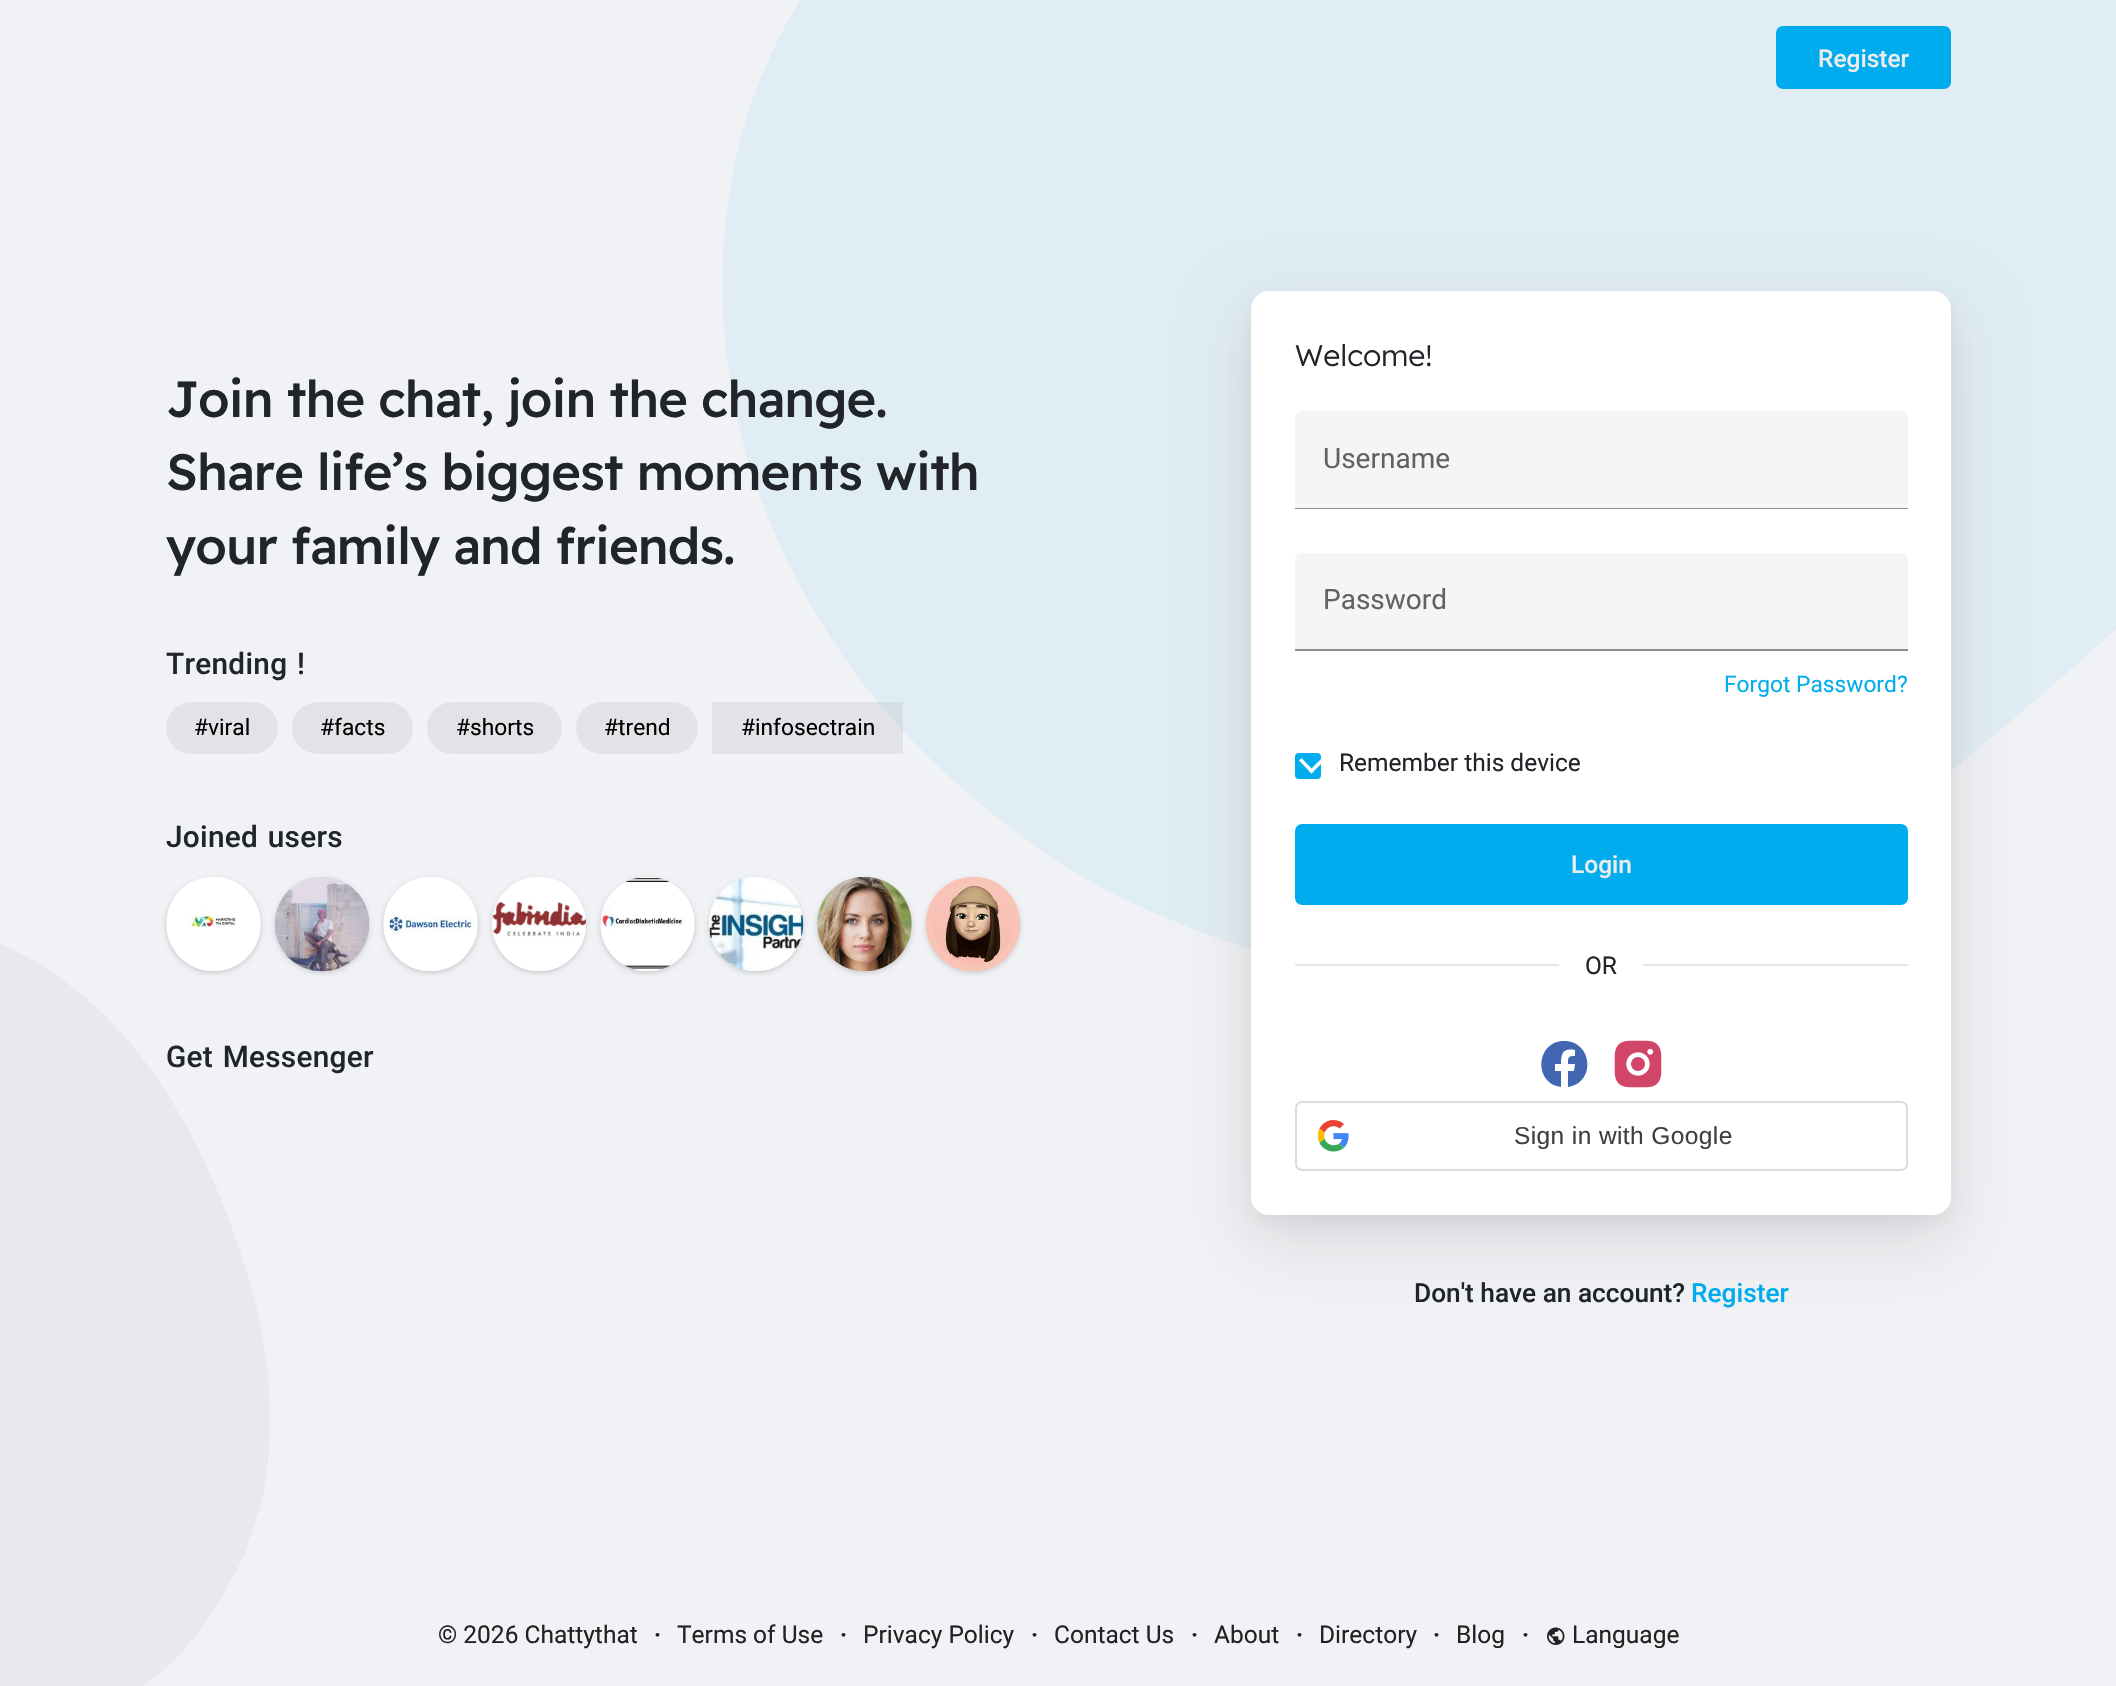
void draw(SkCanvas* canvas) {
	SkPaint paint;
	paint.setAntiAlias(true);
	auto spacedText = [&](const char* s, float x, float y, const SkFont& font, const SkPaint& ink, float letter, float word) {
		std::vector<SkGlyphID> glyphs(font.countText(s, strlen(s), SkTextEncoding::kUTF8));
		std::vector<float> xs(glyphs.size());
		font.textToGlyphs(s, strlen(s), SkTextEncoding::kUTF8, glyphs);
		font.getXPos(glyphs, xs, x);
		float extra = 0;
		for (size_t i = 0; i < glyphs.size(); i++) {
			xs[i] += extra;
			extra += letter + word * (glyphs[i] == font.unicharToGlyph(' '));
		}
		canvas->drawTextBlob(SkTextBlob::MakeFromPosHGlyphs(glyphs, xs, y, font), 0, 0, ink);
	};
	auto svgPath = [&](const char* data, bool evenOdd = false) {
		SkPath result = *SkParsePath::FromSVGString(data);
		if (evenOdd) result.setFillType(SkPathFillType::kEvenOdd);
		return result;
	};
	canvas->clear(0xfff0f2f5);
	canvas->drawImageRect(SkImages::DeferredFromEncodedData(SkData::MakeFromFileName("img1.png")), SkRect::MakeXYWH(722, 0, 1394, 949), SkSamplingOptions());
	canvas->drawImageRect(SkImages::DeferredFromEncodedData(SkData::MakeFromFileName("img2.png")), SkRect::MakeXYWH(0, 944, 270, 742), SkSamplingOptions());
	paint.setColor(0xff00aced);
	canvas->drawRoundRect(SkRect::MakeXYWH(1776, 26, 175, 63), 7, 7, paint);
	SkFont f1(fontMgr->matchFamilyStyle("Roboto", SkFontStyle(500, SkFontStyle::kNormal_Width, SkFontStyle::kUpright_Slant)), 24.5);
	f1.setSubpixel(true);
	paint.setColor(0xffececec);
	canvas->drawString("Register", 1818, 67, f1, paint);
	SkFont f2(fontMgr->matchFamilyStyle("Readex Pro", SkFontStyle(500, SkFontStyle::kNormal_Width, SkFontStyle::kUpright_Slant)), 50.75);
	f2.setSubpixel(true);
	paint.setColor(0xff212529);
	spacedText("Join the chat, join the change.", 166, 417, f2, paint, -0.9, 0);
	spacedText("Share life’s biggest moments with", 166, 490, f2, paint, -0.9, 0);
	spacedText("your family and friends.", 166, 564, f2, paint, -0.9, 0);
	SkFont f3(fontMgr->matchFamilyStyle("Roboto", SkFontStyle(500, SkFontStyle::kNormal_Width, SkFontStyle::kUpright_Slant)), 29.75);
	f3.setSubpixel(true);
	spacedText("Trending !", 166, 674, f3, paint, 0.3, 2);
	paint.setColor(0xffe2e3e6);
	canvas->drawRoundRect(SkRect::MakeXYWH(166, 702, 112, 52), 26, 26, paint);
	SkFont f4(fontMgr->matchFamilyStyle("Roboto", SkFontStyle::Normal()), 22.75);
	f4.setSubpixel(true);
	paint.setColor(0xff000000);
	canvas->drawString("#viral", 194, 735, f4, paint);
	paint.setColor(0xffe2e3e6);
	canvas->drawRoundRect(SkRect::MakeXYWH(292, 702, 121, 52), 26, 26, paint);
	paint.setColor(0xff000000);
	canvas->drawString("#facts", 320, 735, f4, paint);
	paint.setColor(0xffe2e3e6);
	canvas->drawRoundRect(SkRect::MakeXYWH(427, 702, 135, 52), 26, 26, paint);
	paint.setColor(0xff000000);
	canvas->drawString("#shorts", 456, 735, f4, paint);
	paint.setColor(0xffe2e3e6);
	canvas->drawRoundRect(SkRect::MakeXYWH(576, 702, 122, 52), 26, 26, paint);
	paint.setColor(0xff000000);
	canvas->drawString("#trend", 604, 735, f4, paint);
	paint.setColor(0x0f000000);
	canvas->drawRect(SkRect::MakeXYWH(712, 702, 191, 52), paint);
	paint.setColor(0xff000000);
	canvas->drawString("#infosectrain", 741, 735, f4, paint);
	paint.setColor(0xff212529);
	spacedText("Joined users", 166, 847, f3, paint, 0.3, 2);
	paint.setColor(0x0f000000);
	paint.setMaskFilter(SkMaskFilter::MakeBlur(kNormal_SkBlurStyle, 2));
	canvas->drawRoundRect(SkRect::MakeXYWH(166, 879, 95, 94), 47, 47, paint);
	paint.setMaskFilter(nullptr);
	paint.setColor(0x1a000000);
	paint.setMaskFilter(SkMaskFilter::MakeBlur(kNormal_SkBlurStyle, 2.5));
	canvas->drawRoundRect(SkRect::MakeXYWH(166, 879, 95, 94), 47, 47, paint);
	paint.setMaskFilter(nullptr);
	canvas->drawImageRect(SkImages::DeferredFromEncodedData(SkData::MakeFromFileName("img3.png")), SkRect::MakeXYWH(166, 877, 95, 94), SkSamplingOptions());
	paint.setColor(0x0f000000);
	paint.setMaskFilter(SkMaskFilter::MakeBlur(kNormal_SkBlurStyle, 2));
	canvas->drawRoundRect(SkRect::MakeXYWH(275, 879, 94, 94), 47, 47, paint);
	paint.setMaskFilter(nullptr);
	paint.setColor(0x1a000000);
	paint.setMaskFilter(SkMaskFilter::MakeBlur(kNormal_SkBlurStyle, 2.5));
	canvas->drawRoundRect(SkRect::MakeXYWH(275, 879, 94, 94), 47, 47, paint);
	paint.setMaskFilter(nullptr);
	canvas->drawImageRect(SkImages::DeferredFromEncodedData(SkData::MakeFromFileName("img4.png")), SkRect::MakeXYWH(275, 877, 94, 95), SkSamplingOptions());
	paint.setColor(0x0f000000);
	paint.setMaskFilter(SkMaskFilter::MakeBlur(kNormal_SkBlurStyle, 2));
	canvas->drawRoundRect(SkRect::MakeXYWH(383, 879, 95, 94), 47, 47, paint);
	paint.setMaskFilter(nullptr);
	paint.setColor(0x1a000000);
	paint.setMaskFilter(SkMaskFilter::MakeBlur(kNormal_SkBlurStyle, 2.5));
	canvas->drawRoundRect(SkRect::MakeXYWH(383, 879, 95, 94), 47, 47, paint);
	paint.setMaskFilter(nullptr);
	canvas->drawImageRect(SkImages::DeferredFromEncodedData(SkData::MakeFromFileName("img5.png")), SkRect::MakeXYWH(383, 877, 95, 94), SkSamplingOptions());
	paint.setColor(0x0f000000);
	paint.setMaskFilter(SkMaskFilter::MakeBlur(kNormal_SkBlurStyle, 2));
	canvas->drawRoundRect(SkRect::MakeXYWH(492, 879, 94, 94), 47, 47, paint);
	paint.setMaskFilter(nullptr);
	paint.setColor(0x1a000000);
	paint.setMaskFilter(SkMaskFilter::MakeBlur(kNormal_SkBlurStyle, 2.5));
	canvas->drawRoundRect(SkRect::MakeXYWH(492, 879, 94, 94), 47, 47, paint);
	paint.setMaskFilter(nullptr);
	canvas->drawImageRect(SkImages::DeferredFromEncodedData(SkData::MakeFromFileName("img6.png")), SkRect::MakeXYWH(492, 877, 94, 94), SkSamplingOptions());
	paint.setColor(0x0f000000);
	paint.setMaskFilter(SkMaskFilter::MakeBlur(kNormal_SkBlurStyle, 2));
	canvas->drawRoundRect(SkRect::MakeXYWH(600, 879, 95, 94), 47, 47, paint);
	paint.setMaskFilter(nullptr);
	paint.setColor(0x1a000000);
	paint.setMaskFilter(SkMaskFilter::MakeBlur(kNormal_SkBlurStyle, 2.5));
	canvas->drawRoundRect(SkRect::MakeXYWH(600, 879, 95, 94), 47, 47, paint);
	paint.setMaskFilter(nullptr);
	canvas->drawImageRect(SkImages::DeferredFromEncodedData(SkData::MakeFromFileName("img7.png")), SkRect::MakeXYWH(600, 877, 95, 94), SkSamplingOptions());
	paint.setColor(0x0f000000);
	paint.setMaskFilter(SkMaskFilter::MakeBlur(kNormal_SkBlurStyle, 2));
	canvas->drawRoundRect(SkRect::MakeXYWH(709, 879, 94, 94), 47, 47, paint);
	paint.setMaskFilter(nullptr);
	paint.setColor(0x1a000000);
	paint.setMaskFilter(SkMaskFilter::MakeBlur(kNormal_SkBlurStyle, 2.5));
	canvas->drawRoundRect(SkRect::MakeXYWH(709, 879, 94, 94), 47, 47, paint);
	paint.setMaskFilter(nullptr);
	canvas->drawImageRect(SkImages::DeferredFromEncodedData(SkData::MakeFromFileName("img8.png")), SkRect::MakeXYWH(709, 877, 95, 94), SkSamplingOptions());
	paint.setColor(0x0f000000);
	paint.setMaskFilter(SkMaskFilter::MakeBlur(kNormal_SkBlurStyle, 2));
	canvas->drawRoundRect(SkRect::MakeXYWH(817, 879, 95, 94), 47, 47, paint);
	paint.setMaskFilter(nullptr);
	paint.setColor(0x1a000000);
	paint.setMaskFilter(SkMaskFilter::MakeBlur(kNormal_SkBlurStyle, 2.5));
	canvas->drawRoundRect(SkRect::MakeXYWH(817, 879, 95, 94), 47, 47, paint);
	paint.setMaskFilter(nullptr);
	canvas->drawImageRect(SkImages::DeferredFromEncodedData(SkData::MakeFromFileName("img9.png")), SkRect::MakeXYWH(817, 876, 95, 96), SkSamplingOptions());
	paint.setColor(0x0f000000);
	paint.setMaskFilter(SkMaskFilter::MakeBlur(kNormal_SkBlurStyle, 2));
	canvas->drawRoundRect(SkRect::MakeXYWH(926, 879, 94, 94), 47, 47, paint);
	paint.setMaskFilter(nullptr);
	paint.setColor(0x1a000000);
	paint.setMaskFilter(SkMaskFilter::MakeBlur(kNormal_SkBlurStyle, 2.5));
	canvas->drawRoundRect(SkRect::MakeXYWH(926, 879, 94, 94), 47, 47, paint);
	paint.setMaskFilter(nullptr);
	canvas->drawImageRect(SkImages::DeferredFromEncodedData(SkData::MakeFromFileName("img10.png")), SkRect::MakeXYWH(926, 877, 94, 94), SkSamplingOptions());
	paint.setColor(0xff212529);
	spacedText("Get Messenger", 166, 1067, f3, paint, 0.3, 2);
	paint.setColor(0x1a000000);
	paint.setMaskFilter(SkMaskFilter::MakeBlur(kNormal_SkBlurStyle, 35));
	canvas->drawRoundRect(SkRect::MakeXYWH(1251, 317, 700, 924), 18, 18, paint);
	paint.setMaskFilter(nullptr);
	paint.setColor(0x0d000000);
	paint.setMaskFilter(SkMaskFilter::MakeBlur(kNormal_SkBlurStyle, 9));
	canvas->drawRoundRect(SkRect::MakeXYWH(1251, 299, 700, 924), 18, 18, paint);
	paint.setMaskFilter(nullptr);
	paint.setColor(0xffffffff);
	canvas->drawRoundRect(SkRect::MakeXYWH(1251, 291, 700, 924), 18, 18, paint);
	SkFont f5(fontMgr->matchFamilyStyle("Readex Pro", SkFontStyle(300, SkFontStyle::kNormal_Width, SkFontStyle::kUpright_Slant)), 29.75);
	f5.setSubpixel(true);
	paint.setColor(0xff212529);
	canvas->drawString("Welcome!", 1295, 366, f5, paint);
	paint.setColor(0xfff5f5f5);
	canvas->drawPath(svgPath("M1302 411H1901C1905 411 1908 414 1908 418V509H1295V418C1295 414 1298 411 1302 411Z"), paint);
	paint.setColor(0xff8e8e8e);
	canvas->drawRect(SkRect::MakeXYWH(1295, 508, 613, 1), paint);
	SkFont f6(fontMgr->matchFamilyStyle("Roboto", SkFontStyle::Normal()), 28);
	f6.setSubpixel(true);
	paint.setColor(0xff626262);
	canvas->drawString("Username", 1323, 468, f6, paint);
	paint.setColor(0xfff5f5f5);
	canvas->drawPath(svgPath("M1302 553H1901C1905 553 1908 556 1908 560V651H1295V560C1295 556 1298 553 1302 553Z"), paint);
	paint.setColor(0xff8e8e8e);
	canvas->drawRect(SkRect::MakeXYWH(1295, 649, 613, 2), paint);
	paint.setColor(0xff626262);
	canvas->drawString("Password", 1323, 609, f6, paint);
	paint.setColor(0xff00aced);
	canvas->drawString("Forgot Password?", 1724, 692, f4, paint);
	canvas->drawRoundRect(SkRect::MakeXYWH(1295, 753, 26, 26), 4, 4, paint);
	SkFont f7(fontMgr->matchFamilyStyle("Roboto", SkFontStyle::Normal()), 24.5);
	f7.setSubpixel(true);
	paint.setColor(0xff212529);
	canvas->drawString("Remember this device", 1339, 771, f7, paint);
	paint.setColor(0xffffffff);
	canvas->drawPath(svgPath("M1309 771L1322 758L1324.5 760.5L1311.5 773.5Z"), paint);
	canvas->drawPath(svgPath("M1299 760.5L1301.5 758L1314 771L1311.5 773.5Z"), paint);
	paint.setColor(0xff00aced);
	canvas->drawRoundRect(SkRect::MakeXYWH(1295, 824, 613, 81), 7, 7, paint);
	paint.setColor(0xffececec);
	canvas->drawString("Login", 1571, 873, f1, paint);
	paint.setColor(0xffe6e6e6);
	canvas->drawRect(SkRect::MakeXYWH(1295, 964, 264, 2), paint);
	paint.setColor(0xff212529);
	canvas->drawString("OR", 1585, 974, f7, paint);
	paint.setColor(0xffe6e6e6);
	canvas->drawRect(SkRect::MakeXYWH(1643, 964, 265, 2), paint);
	paint.setColor(0xff4267b2);
	canvas->drawPath(svgPath("M1564 1041C1536 1041 1533 1083 1561 1087V1071H1555V1064H1561C1561 1053 1563 1048 1575 1050V1056C1568 1056 1568 1057 1568 1064H1575L1574 1071H1568V1087C1596 1083 1593 1041 1564 1041Z"), paint);
	canvas->drawImageRect(SkImages::DeferredFromEncodedData(SkData::MakeFromFileName("img11.png")), SkRect::MakeXYWH(1614, 1040, 48, 48), SkSamplingOptions());
	paint.setStroke(true);
	paint.setStrokeWidth(2);
	paint.setColor(0xffdadce0);
	canvas->drawRoundRect(SkRect::MakeXYWH(1296, 1102, 611, 68), 6, 6, paint);
	canvas->drawImageRect(SkImages::DeferredFromEncodedData(SkData::MakeFromFileName("img12.png")), SkRect::MakeXYWH(1318, 1120, 31, 32), SkSamplingOptions());
	SkFont f8(fontMgr->matchFamilyStyle("Liberation Sans", SkFontStyle::Normal()), 24.5);
	f8.setSubpixel(true);
	paint.setStroke(false);
	paint.setColor(0xff3c4043);
	spacedText("Sign in with Google", 1514, 1144, f8, paint, 0.4, 0);
	SkFont f9(fontMgr->matchFamilyStyle("Roboto", SkFontStyle(500, SkFontStyle::kNormal_Width, SkFontStyle::kUpright_Slant)), 26.25);
	f9.setSubpixel(true);
	paint.setColor(0xff212529);
	canvas->drawString("Don't have an account?", 1414, 1302, f9, paint);
	paint.setColor(0xff00aced);
	canvas->drawString("Register", 1691, 1302, f9, paint);
	paint.setColor(0xff222222);
	canvas->drawString("© 2026 Chattythat", 438, 1643, f7, paint);
	SkFont f10(fontMgr->matchFamilyStyle("Roboto", SkFontStyle::Bold()), 22.75);
	f10.setSubpixel(true);
	canvas->drawString("·", 654, 1643, f10, paint);
	canvas->drawString("Terms of Use", 677, 1643, f7, paint);
	canvas->drawString("·", 840, 1643, f10, paint);
	canvas->drawString("Privacy Policy", 863, 1643, f7, paint);
	canvas->drawString("·", 1031, 1643, f10, paint);
	canvas->drawString("Contact Us", 1054, 1643, f7, paint);
	canvas->drawString("·", 1191, 1643, f10, paint);
	canvas->drawString("About", 1214, 1643, f7, paint);
	canvas->drawString("·", 1296, 1643, f10, paint);
	canvas->drawString("Directory", 1319, 1643, f7, paint);
	canvas->drawString("·", 1433, 1643, f10, paint);
	canvas->drawString("Blog", 1456, 1643, f7, paint);
	canvas->drawString("·", 1522, 1643, f10, paint);
	canvas->drawImageRect(SkImages::DeferredFromEncodedData(SkData::MakeFromFileName("img13.png")), SkRect::MakeXYWH(1547, 1627, 18, 18), SkSamplingOptions());
	canvas->drawString("Language", 1572, 1643, f7, paint);
}
